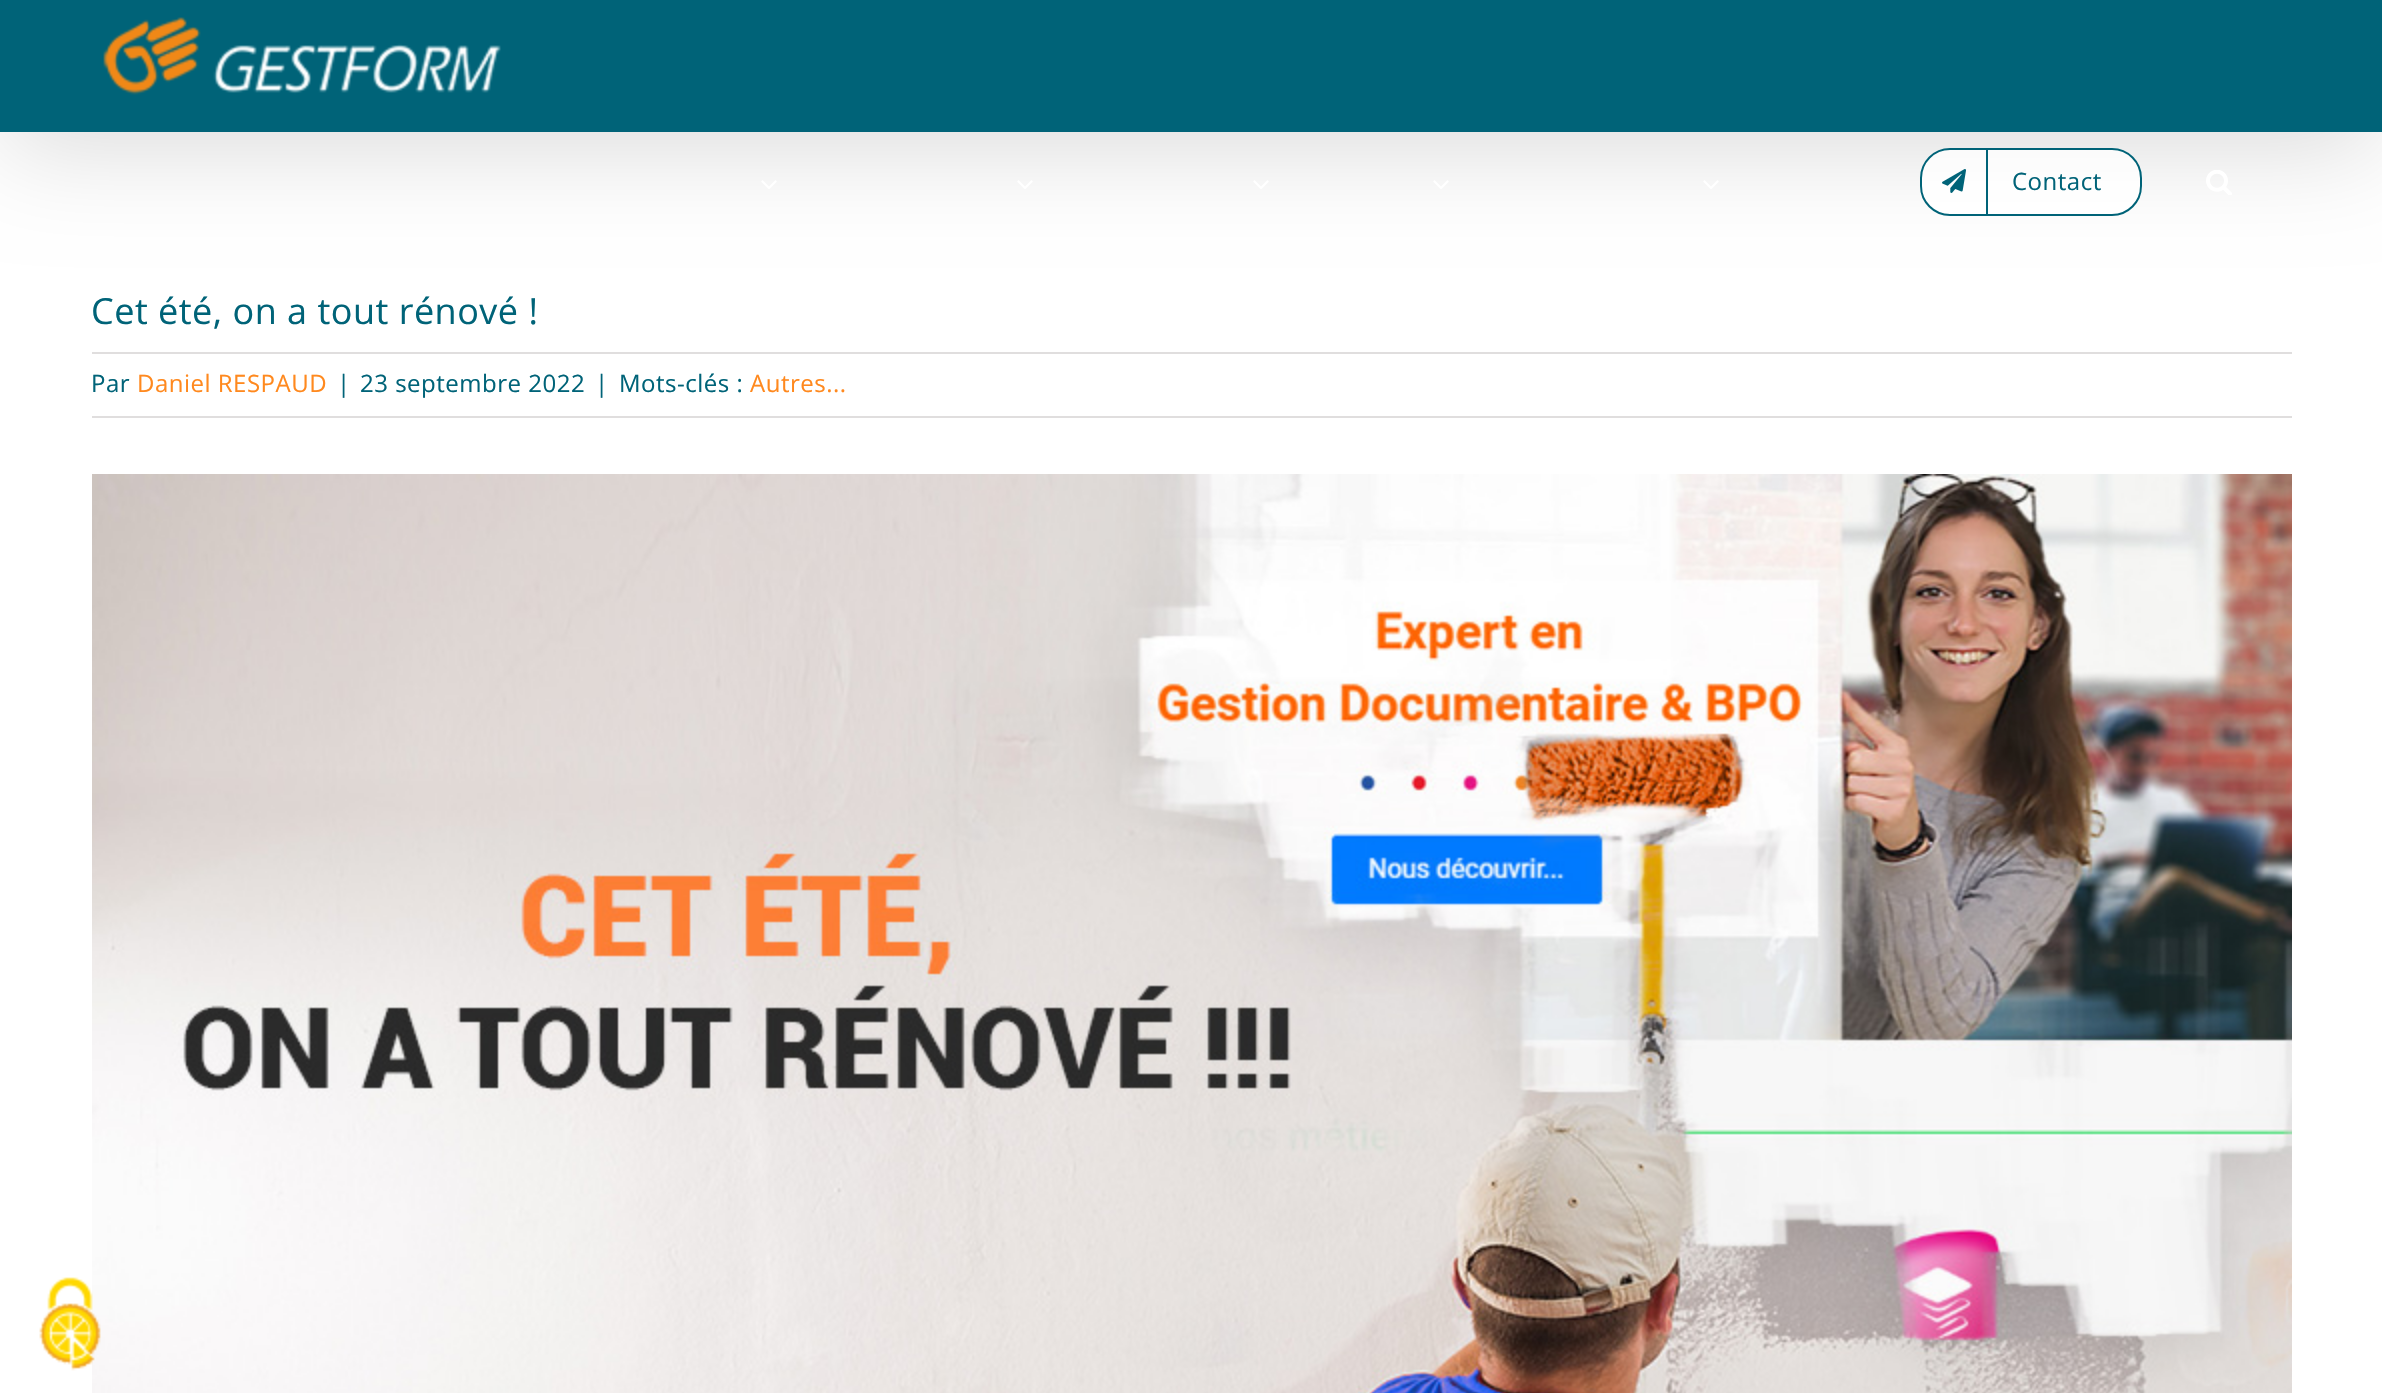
void draw(SkCanvas* canvas) {
	SkPaint paint;
	paint.setAntiAlias(true);
	auto spacedText = [&](const char* s, float x, float y, const SkFont& font, const SkPaint& ink, float letter, float word) {
		std::vector<SkGlyphID> glyphs(font.countText(s, strlen(s), SkTextEncoding::kUTF8));
		std::vector<float> xs(glyphs.size());
		font.textToGlyphs(s, strlen(s), SkTextEncoding::kUTF8, glyphs);
		font.getXPos(glyphs, xs, x);
		float extra = 0;
		for (size_t i = 0; i < glyphs.size(); i++) {
			xs[i] += extra;
			extra += letter + word * (glyphs[i] == font.unicharToGlyph(' '));
		}
		canvas->drawTextBlob(SkTextBlob::MakeFromPosHGlyphs(glyphs, xs, y, font), 0, 0, ink);
	};
	auto svgPath = [&](const char* data, bool evenOdd = false) {
		SkPath result = *SkParsePath::FromSVGString(data);
		if (evenOdd) result.setFillType(SkPathFillType::kEvenOdd);
		return result;
	};
	canvas->clear(0xffffffff);
	paint.setColor(0x24000000);
	paint.setMaskFilter(SkMaskFilter::MakeBlur(kNormal_SkBlurStyle, 50));
	canvas->drawRect(SkRect::MakeXYWH(4, 24, 2374, 124), paint);
	paint.setMaskFilter(nullptr);
	paint.setColor(0xff006378);
	canvas->drawRect(SkRect::MakeXYWH(0, 0, 2382, 132), paint);
	canvas->drawImageRect(SkImages::DeferredFromEncodedData(SkData::MakeFromFileName("img1.png")), SkRect::MakeXYWH(103, 17, 398, 78), SkSamplingOptions());
	canvas->drawImageRect(SkImages::DeferredFromEncodedData(SkData::MakeFromFileName("img2.png")), SkRect::MakeXYWH(761, 180, 16, 9), SkSamplingOptions());
	canvas->drawImageRect(SkImages::DeferredFromEncodedData(SkData::MakeFromFileName("img2.png")), SkRect::MakeXYWH(1017, 180, 16, 9), SkSamplingOptions());
	canvas->drawImageRect(SkImages::DeferredFromEncodedData(SkData::MakeFromFileName("img2.png")), SkRect::MakeXYWH(1253, 180, 16, 9), SkSamplingOptions());
	canvas->drawImageRect(SkImages::DeferredFromEncodedData(SkData::MakeFromFileName("img2.png")), SkRect::MakeXYWH(1433, 180, 16, 9), SkSamplingOptions());
	canvas->drawImageRect(SkImages::DeferredFromEncodedData(SkData::MakeFromFileName("img2.png")), SkRect::MakeXYWH(1703, 180, 16, 9), SkSamplingOptions());
	paint.setColor(0x80ffffff);
	canvas->drawRoundRect(SkRect::MakeXYWH(1920, 148, 222, 68), 30, 30, paint);
	canvas->save();
	canvas->clipPath(svgPath("M1950 148H2112C2128.5 148 2142 161.5 2142 178V186C2142 202.5 2128.5 216 2112 216H1950C1933.5 216 1920 202.5 1920 186V178C1920 161.5 1933.5 148 1950 148Z"), true);
	{
		const SkColor colors[] = {0x80ffffff, 0xb3ffffff};
		const float stops[] = {0, 1};
		const SkPoint ends[] = {{2031, 150}, {2031, 214}};
		paint.setShader(SkGradientShader::MakeLinear(ends, colors, stops, 2, SkTileMode::kClamp));
		paint.setAlpha(255);
	}
	canvas->drawRect(SkRect::MakeXYWH(1920, 150, 222, 64), paint);
	canvas->restore();
	paint.setStroke(true);
	paint.setStrokeWidth(2);
	paint.setShader(nullptr);
	paint.setColor(0xff006378);
	canvas->drawRoundRect(SkRect::MakeXYWH(1921, 149, 220, 66), 29, 29, paint);
	paint.setStroke(false);
	canvas->drawRect(SkRect::MakeXYWH(1986, 150, 2, 64), paint);
	canvas->drawImageRect(SkImages::DeferredFromEncodedData(SkData::MakeFromFileName("img3.png")), SkRect::MakeXYWH(1942, 169, 24, 24), SkSamplingOptions());
	SkFont f1(fontMgr->matchFamilyStyle("Open Sans", SkFontStyle::Normal()), 24);
	f1.setSubpixel(true);
	spacedText("Contact", 2012, 190, f1, paint, 0.5, 0);
	canvas->drawImageRect(SkImages::DeferredFromEncodedData(SkData::MakeFromFileName("img4.png")), SkRect::MakeXYWH(2206, 170, 26, 25), SkSamplingOptions());
	SkFont f2(fontMgr->matchFamilyStyle("Open Sans", SkFontStyle::Normal()), 36);
	f2.setSubpixel(true);
	spacedText("Cet été, on a tout rénové !", 91, 324, f2, paint, 0.5, 0);
	paint.setColor(0xffe0dede);
	canvas->drawRect(SkRect::MakeXYWH(92, 352, 2200, 2), paint);
	canvas->drawRect(SkRect::MakeXYWH(92, 416, 2200, 2), paint);
	paint.setColor(0xff006378);
	spacedText("Par", 91, 392, f1, paint, 0.5, 0);
	paint.setColor(0xffff891e);
	spacedText("Daniel RESPAUD", 137, 392, f1, paint, 0.5, 0);
	paint.setColor(0xff006378);
	spacedText("|", 337, 392, f1, paint, 0.5, 0);
	spacedText("23 septembre 2022", 360, 392, f1, paint, 0.5, 0);
	spacedText("|", 595, 392, f1, paint, 0.5, 0);
	spacedText("Mots-clés :", 619, 392, f1, paint, 0.5, 0);
	paint.setColor(0xffff891e);
	spacedText("Autres...", 750, 392, f1, paint, 0.5, 0);
	canvas->drawImageRect(SkImages::DeferredFromEncodedData(SkData::MakeFromFileName("img5.png")), SkRect::MakeXYWH(92, 474, 2200, 919), SkSamplingOptions());
	canvas->drawImageRect(SkImages::DeferredFromEncodedData(SkData::MakeFromFileName("img6.png")), SkRect::MakeXYWH(39, 1277, 62, 94), SkSamplingOptions());
}
